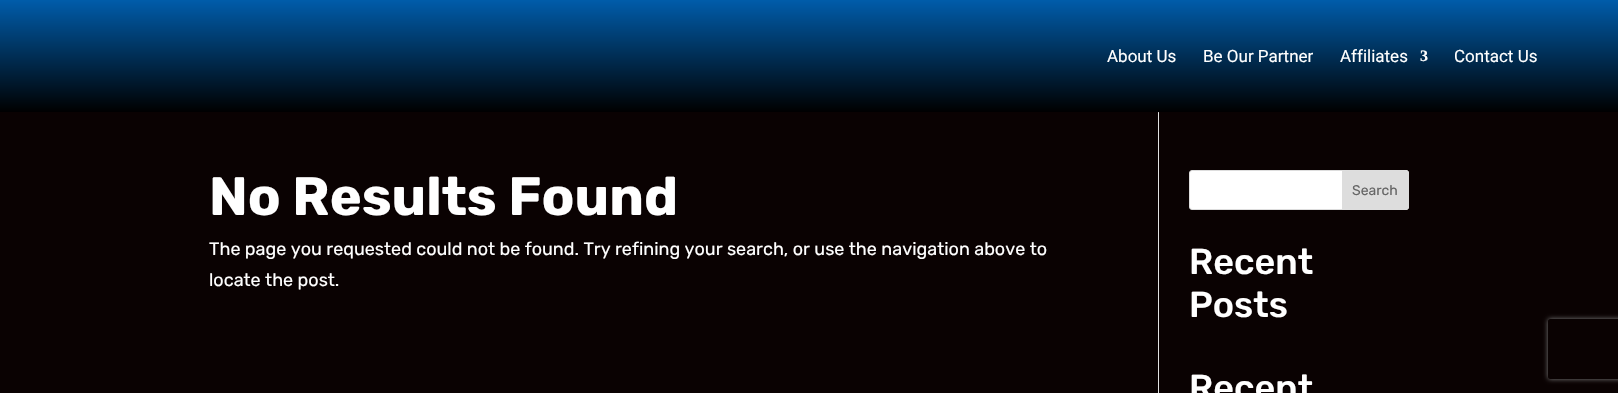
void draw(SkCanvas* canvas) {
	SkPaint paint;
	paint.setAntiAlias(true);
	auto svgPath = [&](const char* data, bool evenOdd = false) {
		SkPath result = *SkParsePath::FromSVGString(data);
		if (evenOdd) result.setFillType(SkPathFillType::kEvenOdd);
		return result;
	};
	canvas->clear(0xff0a0202);
	{
		const SkColor colors[] = {0xff005caa, 0xff000000};
		const float stops[] = {0, 1};
		const SkPoint ends[] = {{809, 0}, {809, 112}};
		paint.setShader(SkGradientShader::MakeLinear(ends, colors, stops, 2, SkTileMode::kClamp));
		paint.setAlpha(255);
	}
	canvas->drawRect(SkRect::MakeXYWH(0, 0, 1618, 112), paint);
	SkFont f1(fontMgr->matchFamilyStyle("Roboto", SkFontStyle::Normal()), 17);
	f1.setSubpixel(true);
	paint.setShader(nullptr);
	paint.setColor(0xffffffff);
	canvas->drawString("About Us", 1107, 62, f1, paint);
	canvas->drawString("Be Our Partner", 1203, 62, f1, paint);
	canvas->drawString("Affiliates", 1340, 62, f1, paint);
	SkFont f2(fontMgr->matchFamilyStyle("Liberation Serif", SkFontStyle::Bold()), 16);
	f2.setSubpixel(true);
	canvas->drawString("3", 1420, 61, f2, paint);
	canvas->drawString("Contact Us", 1454, 62, f1, paint);
	paint.setColor(0xffe2e2e2);
	canvas->drawRect(SkRect::MakeXYWH(1158, 112, 1, 281), paint);
	paint.setColor(0xffcbcbcb);
	canvas->drawRect(SkRect::MakeXYWH(1158, 112, 1, 1), paint);
	SkFont f3(fontMgr->matchFamilyStyle("Rubik", SkFontStyle::Bold()), 54);
	f3.setSubpixel(true);
	paint.setColor(0xffffffff);
	canvas->drawString("No Results Found", 209, 215, f3, paint);
	SkFont f4(fontMgr->matchFamilyStyle("Rubik", SkFontStyle::Normal()), 18);
	f4.setSubpixel(true);
	canvas->drawString("The page you requested could not be found. Try refining your search, or use the navigation above to", 209, 255, f4, paint);
	canvas->drawString("locate the post.", 209, 286, f4, paint);
	canvas->drawRoundRect(SkRect::MakeXYWH(1189.5, 170.5, 219, 39), 2.5, 2.5, paint);
	paint.setStroke(true);
	paint.setStrokeWidth(1);
	paint.setColor(0xffdddddd);
	canvas->drawRoundRect(SkRect::MakeXYWH(1189.5, 170.5, 219, 39), 2.5, 2.5, paint);
	paint.setStroke(false);
	canvas->drawPath(svgPath("M1342.5 170.5H1406C1407.5 170.5 1408.5 171.5 1408.5 173V207C1408.5 208.5 1407.5 209.5 1406 209.5H1342.5Z"), paint);
	paint.setStroke(true);
	canvas->drawPath(svgPath("M1342.5 170.5H1406C1407.5 170.5 1408.5 171.5 1408.5 173V207C1408.5 208.5 1407.5 209.5 1406 209.5H1342.5Z"), paint);
	SkFont f5(fontMgr->matchFamilyStyle("Rubik", SkFontStyle::Normal()), 14);
	f5.setSubpixel(true);
	paint.setStroke(false);
	paint.setColor(0xff666666);
	canvas->drawString("Search", 1352, 195, f5, paint);
	SkFont f6(fontMgr->matchFamilyStyle("Rubik", SkFontStyle(500, SkFontStyle::kNormal_Width, SkFontStyle::kUpright_Slant)), 36);
	f6.setSubpixel(true);
	paint.setColor(0xffffffff);
	canvas->drawString("Recent", 1189, 274, f6, paint);
	canvas->drawString("Posts", 1189, 317, f6, paint);
	canvas->drawString("Recent", 1189, 400, f6, paint);
	canvas->save();
	canvas->clipPath(svgPath("M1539 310H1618V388H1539ZM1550 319H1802C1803 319 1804 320 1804 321V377C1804 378 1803 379 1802 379H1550C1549 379 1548 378 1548 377V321C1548 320 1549 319 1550 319Z", true), true);
	paint.setColor(0xff808080);
	paint.setMaskFilter(SkMaskFilter::MakeBlur(kNormal_SkBlurStyle, 2.5));
	canvas->drawRoundRect(SkRect::MakeXYWH(1548, 319, 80, 60), 2, 2, paint);
	paint.setMaskFilter(nullptr);
	canvas->restore();
}
